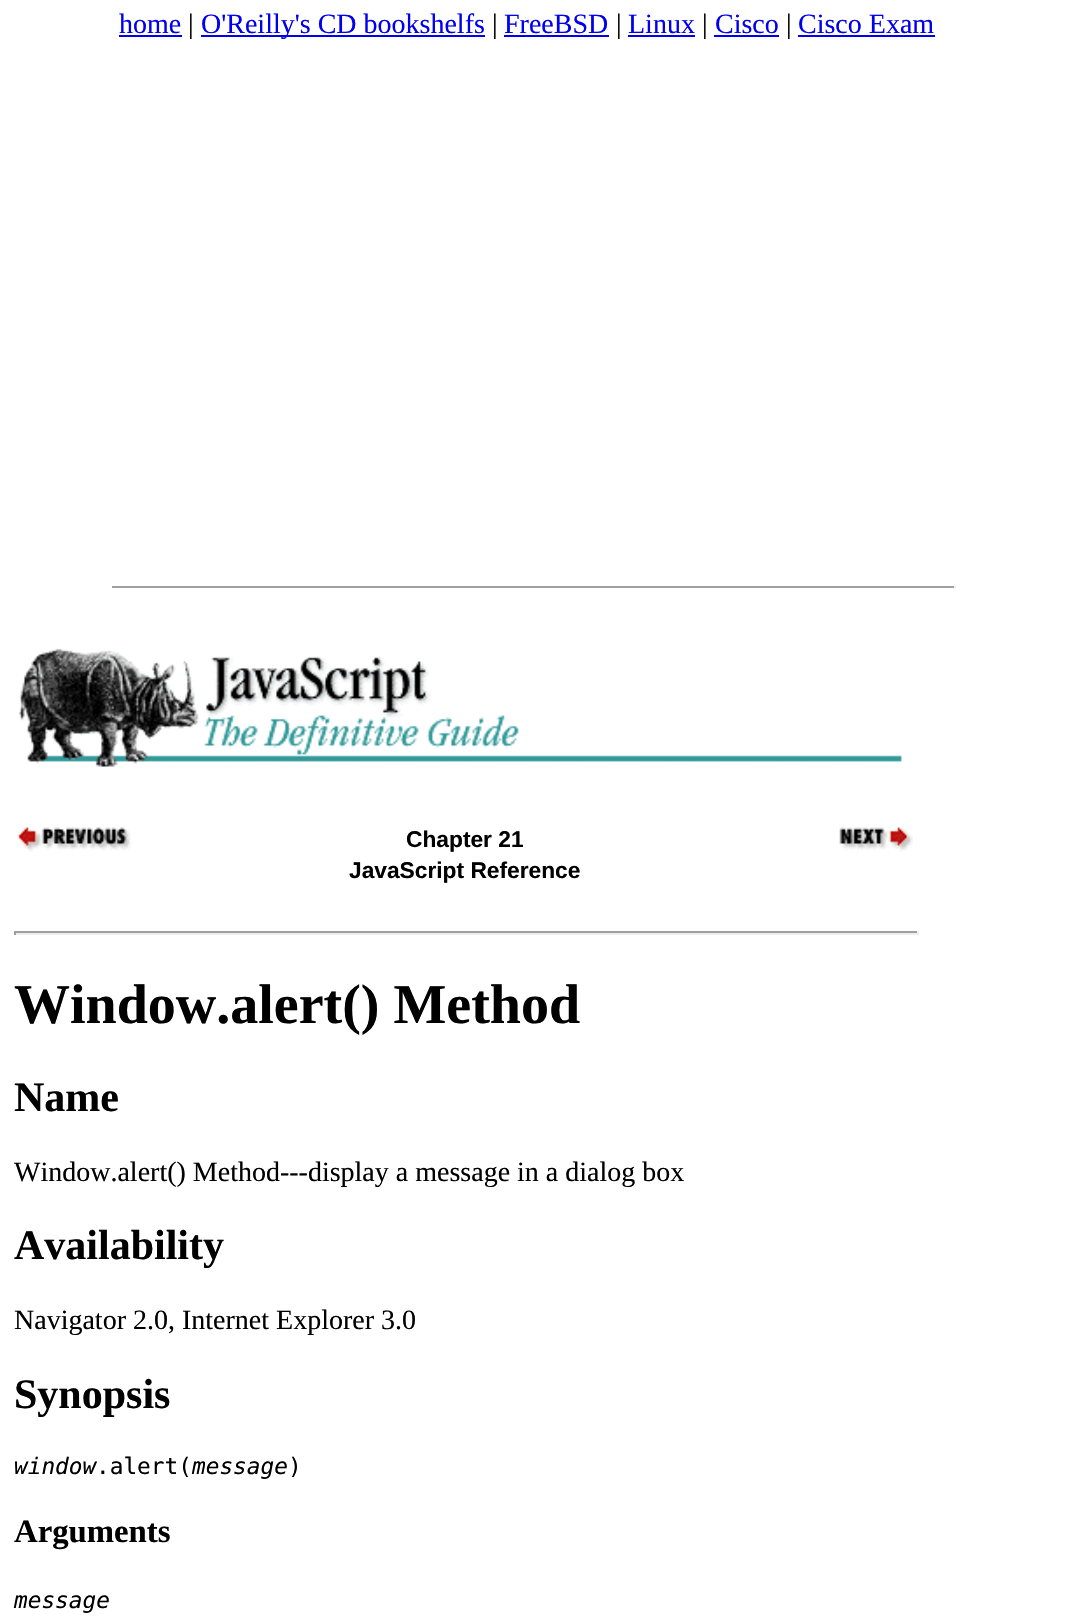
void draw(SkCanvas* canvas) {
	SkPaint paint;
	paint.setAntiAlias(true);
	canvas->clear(0xffffffff);
	SkFont f1(fontMgr->matchFamilyStyle("Liberation Serif", SkFontStyle::Normal()), 28);
	f1.setSubpixel(true);
	paint.setColor(0xff0000ee);
	canvas->drawString("home", 119, 33, f1, paint);
	canvas->drawRect(SkRect::MakeXYWH(119, 35, 63, 2), paint);
	paint.setColor(0xff000000);
	canvas->drawString("|", 188, 33, f1, paint);
	paint.setColor(0xff0000ee);
	canvas->drawRect(SkRect::MakeXYWH(201, 35, 284, 2), paint);
	canvas->drawString("O'Reilly's CD bookshelfs", 201, 33, f1, paint);
	paint.setColor(0xff000000);
	canvas->drawString("|", 492, 33, f1, paint);
	paint.setColor(0xff0000ee);
	canvas->drawString("FreeBSD", 504, 33, f1, paint);
	canvas->drawRect(SkRect::MakeXYWH(504, 35, 105, 2), paint);
	paint.setColor(0xff000000);
	canvas->drawString("|", 616, 33, f1, paint);
	paint.setColor(0xff0000ee);
	canvas->drawString("Linux", 628, 33, f1, paint);
	canvas->drawRect(SkRect::MakeXYWH(628, 35, 67, 2), paint);
	paint.setColor(0xff000000);
	canvas->drawString("|", 702, 33, f1, paint);
	paint.setColor(0xff0000ee);
	canvas->drawString("Cisco", 715, 33, f1, paint);
	canvas->drawRect(SkRect::MakeXYWH(714, 35, 65, 2), paint);
	paint.setColor(0xff000000);
	canvas->drawString("|", 786, 33, f1, paint);
	paint.setColor(0xff0000ee);
	canvas->drawString("Cisco Exam", 798, 33, f1, paint);
	canvas->drawRect(SkRect::MakeXYWH(798, 35, 137, 2), paint);
	paint.setColor(0xff9f9f9f);
	canvas->drawRect(SkRect::MakeXYWH(112, 586, 844, 2), paint);
	paint.setColor(0xffeeeeee);
	canvas->drawRect(SkRect::MakeXYWH(954, 586, 2, 2), paint);
	canvas->drawImageRect(SkImages::DeferredFromEncodedData(SkData::MakeFromFileName("img1.png")), SkRect::MakeXYWH(18, 648, 884, 119), SkSamplingOptions());
	canvas->drawImageRect(SkImages::DeferredFromEncodedData(SkData::MakeFromFileName("img2.png")), SkRect::MakeXYWH(17, 826, 114, 26), SkSamplingOptions());
	SkFont f2(fontMgr->matchFamilyStyle("Liberation Sans", SkFontStyle::Bold()), 22.75);
	f2.setSubpixel(true);
	paint.setColor(0xff000000);
	canvas->drawString("Chapter 21", 406, 847, f2, paint);
	canvas->drawString("JavaScript Reference", 349, 878, f2, paint);
	canvas->drawImageRect(SkImages::DeferredFromEncodedData(SkData::MakeFromFileName("img3.png")), SkRect::MakeXYWH(839, 825, 74, 27), SkSamplingOptions());
	paint.setColor(0xff9f9f9f);
	canvas->drawRect(SkRect::MakeXYWH(14, 931, 905, 2), paint);
	paint.setColor(0xffeeeeee);
	canvas->drawRect(SkRect::MakeXYWH(917, 931, 2, 4), paint);
	canvas->drawRect(SkRect::MakeXYWH(14, 933, 905, 2), paint);
	paint.setColor(0xff9f9f9f);
	canvas->drawRect(SkRect::MakeXYWH(14, 931, 2, 4), paint);
	SkFont f3(fontMgr->matchFamilyStyle("Liberation Serif", SkFontStyle::Bold()), 56);
	f3.setSubpixel(true);
	paint.setColor(0xff000000);
	canvas->drawString("Window.alert() Method", 14, 1023, f3, paint);
	SkFont f4(fontMgr->matchFamilyStyle("Liberation Serif", SkFontStyle::Bold()), 42);
	f4.setSubpixel(true);
	canvas->drawString("Name", 14, 1111, f4, paint);
	canvas->drawString("Window.alert() Method---display a message in a dialog box", 14, 1181, f1, paint);
	canvas->drawString("Availability", 14, 1259, f4, paint);
	canvas->drawString("Navigator 2.0, Internet Explorer 3.0", 14, 1329, f1, paint);
	canvas->drawString("Synopsis", 14, 1408, f4, paint);
	SkFont f5(fontMgr->matchFamilyStyle("DejaVu Sans Mono", SkFontStyle::Italic()), 22.75);
	f5.setSubpixel(true);
	canvas->drawString("window", 14, 1474, f5, paint);
	SkFont f6(fontMgr->matchFamilyStyle("DejaVu Sans Mono", SkFontStyle::Normal()), 22.75);
	f6.setSubpixel(true);
	canvas->drawString(".alert(", 96, 1474, f6, paint);
	canvas->drawString("message", 192, 1474, f5, paint);
	canvas->drawString(")", 288, 1474, f6, paint);
	SkFont f7(fontMgr->matchFamilyStyle("Liberation Serif", SkFontStyle::Bold()), 32.75);
	f7.setSubpixel(true);
	canvas->drawString("Arguments", 14, 1542, f7, paint);
	canvas->drawString("message", 14, 1608, f5, paint);
}
